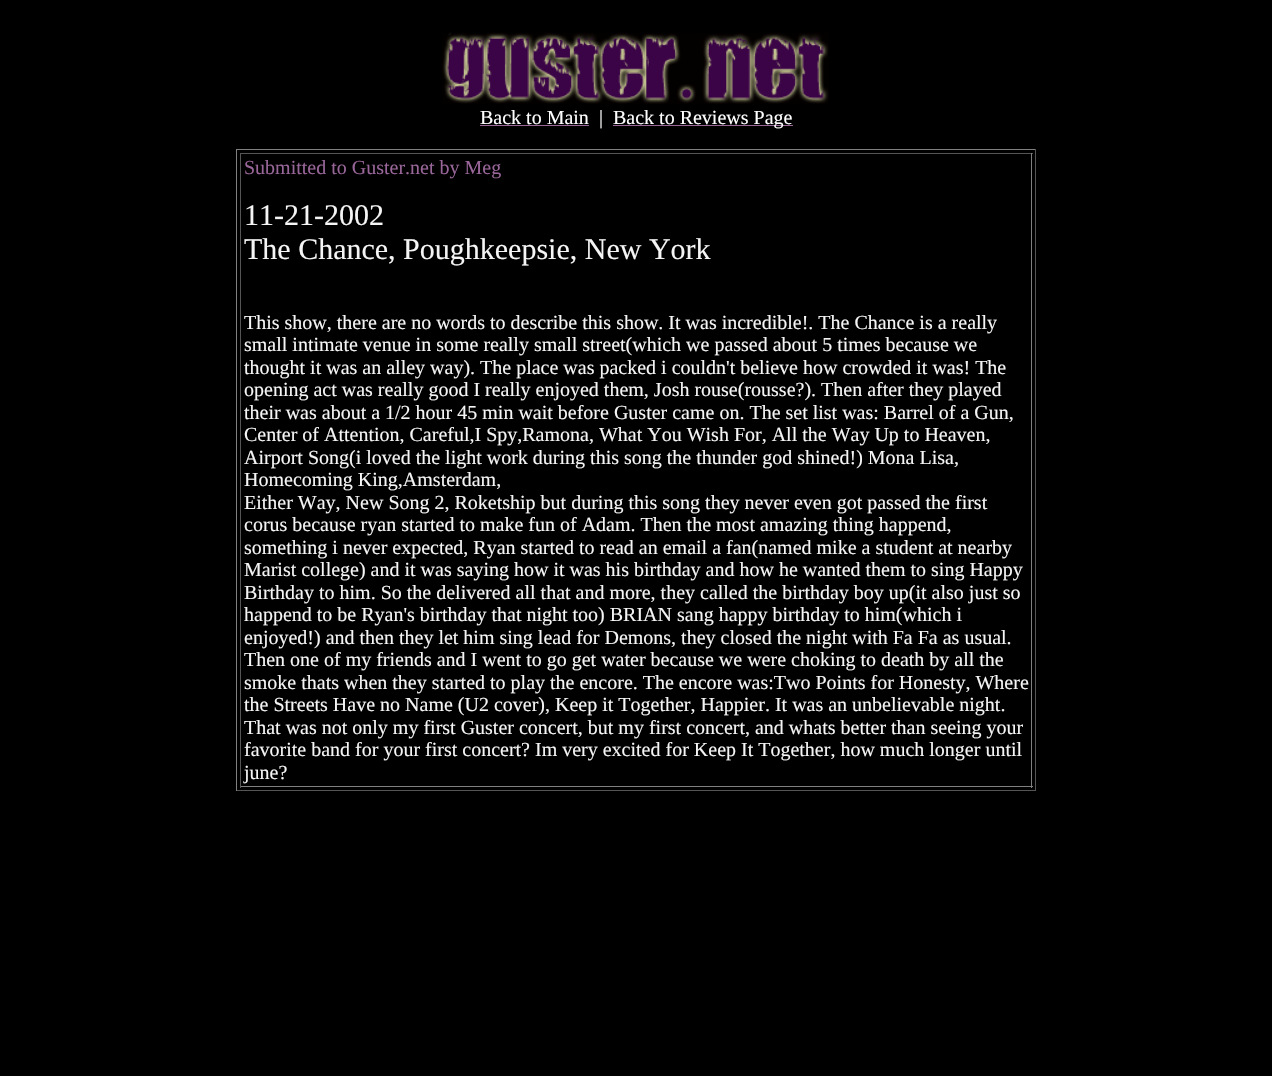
void draw(SkCanvas* canvas) {
	SkPaint paint;
	paint.setAntiAlias(true);
	canvas->clear(0xff000000);
	canvas->drawImageRect(SkImages::DeferredFromEncodedData(SkData::MakeFromFileName("img1.png")), SkRect::MakeXYWH(442, 32, 387, 72), SkSamplingOptions());
	SkFont f1(fontMgr->matchFamilyStyle("Liberation Serif", SkFontStyle::Normal()), 20);
	f1.setSubpixel(true);
	paint.setColor(0xffffffff);
	canvas->drawString("Back to Main", 480, 124, f1, paint);
	paint.setColor(0xff996699);
	canvas->drawRect(SkRect::MakeXYWH(480, 125, 109, 1), paint);
	paint.setColor(0xfff5f5f5);
	canvas->drawString("|", 599, 124, f1, paint);
	paint.setColor(0xff996699);
	canvas->drawRect(SkRect::MakeXYWH(613, 125, 180, 1), paint);
	paint.setColor(0xffffffff);
	canvas->drawString("Back to Reviews Page", 613, 124, f1, paint);
	paint.setColor(0xff808080);
	canvas->drawRect(SkRect::MakeXYWH(236, 149, 800, 1), paint);
	paint.setColor(0xff555555);
	canvas->drawRect(SkRect::MakeXYWH(1035, 149, 1, 642), paint);
	canvas->drawRect(SkRect::MakeXYWH(236, 790, 800, 1), paint);
	paint.setColor(0xff808080);
	canvas->drawRect(SkRect::MakeXYWH(236, 149, 1, 642), paint);
	paint.setColor(0xff555555);
	canvas->drawRect(SkRect::MakeXYWH(240, 153, 793, 1), paint);
	paint.setColor(0xff808080);
	canvas->drawRect(SkRect::MakeXYWH(1031, 153, 1, 635), paint);
	canvas->drawRect(SkRect::MakeXYWH(240, 786, 793, 1), paint);
	paint.setColor(0xff555555);
	canvas->drawRect(SkRect::MakeXYWH(240, 153, 1, 635), paint);
	paint.setColor(0xff996699);
	canvas->drawString("Submitted to Guster.net by Meg", 244, 174, f1, paint);
	SkFont f2(fontMgr->matchFamilyStyle("Liberation Serif", SkFontStyle::Normal()), 30);
	f2.setSubpixel(true);
	paint.setColor(0xfff5f5f5);
	canvas->drawString("11-21-2002", 244, 225, f2, paint);
	canvas->drawString("The Chance, Poughkeepsie, New York", 244, 259, f2, paint);
	canvas->drawString("This show, there are no words to describe this show. It was incredible!. The Chance is a really", 244, 329, f1, paint);
	canvas->drawString("small intimate venue in some really small street(which we passed about 5 times because we", 244, 351, f1, paint);
	canvas->drawString("thought it was an alley way). The place was packed i couldn't believe how crowded it was! The", 244, 374, f1, paint);
	canvas->drawString("opening act was really good I really enjoyed them, Josh rouse(rousse?). Then after they played", 244, 396, f1, paint);
	canvas->drawString("their was about a 1/2 hour 45 min wait before Guster came on. The set list was: Barrel of a Gun,", 244, 419, f1, paint);
	canvas->drawString("Center of Attention, Careful,I Spy,Ramona, What You Wish For, All the Way Up to Heaven,", 244, 441, f1, paint);
	canvas->drawString("Airport Song(i loved the light work during this song the thunder god shined!) Mona Lisa,", 244, 464, f1, paint);
	canvas->drawString("Homecoming King,Amsterdam,", 244, 486, f1, paint);
	canvas->drawString("Either Way, New Song 2, Roketship but during this song they never even got passed the first", 244, 509, f1, paint);
	canvas->drawString("corus because ryan started to make fun of Adam. Then the most amazing thing happend,", 244, 531, f1, paint);
	canvas->drawString("something i never expected, Ryan started to read an email a fan(named mike a student at nearby", 244, 554, f1, paint);
	canvas->drawString("Marist college) and it was saying how it was his birthday and how he wanted them to sing Happy", 244, 576, f1, paint);
	canvas->drawString("Birthday to him. So the delivered all that and more, they called the birthday boy up(it also just so", 244, 599, f1, paint);
	canvas->drawString("happend to be Ryan's birthday that night too) BRIAN sang happy birthday to him(which i", 244, 621, f1, paint);
	canvas->drawString("enjoyed!) and then they let him sing lead for Demons, they closed the night with Fa Fa as usual.", 244, 644, f1, paint);
	canvas->drawString("Then one of my friends and I went to go get water because we were choking to death by all the", 244, 666, f1, paint);
	canvas->drawString("smoke thats when they started to play the encore. The encore was:Two Points for Honesty, Where", 244, 689, f1, paint);
	canvas->drawString("the Streets Have no Name (U2 cover), Keep it Together, Happier. It was an unbelievable night.", 244, 711, f1, paint);
	canvas->drawString("That was not only my first Guster concert, but my first concert, and whats better than seeing your", 244, 734, f1, paint);
	canvas->drawString("favorite band for your first concert? Im very excited for Keep It Together, how much longer until", 244, 756, f1, paint);
	canvas->drawString("june?", 244, 779, f1, paint);
}
